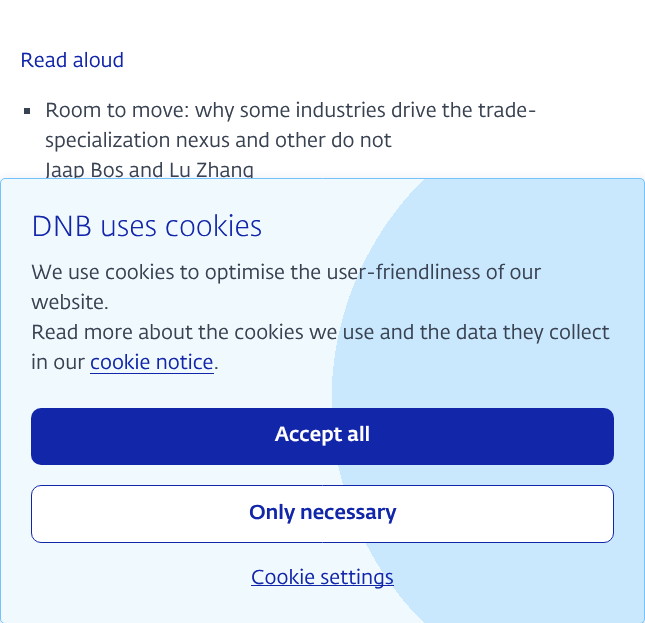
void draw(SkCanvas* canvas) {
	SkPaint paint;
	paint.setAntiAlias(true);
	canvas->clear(0xfff4f4f6);
	paint.setColor(0xffffffff);
	canvas->drawRect(SkRect::MakeXYWH(0, 0, 645, 183), paint);
	SkFont f1(fontMgr->matchFamilyStyle("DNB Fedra", SkFontStyle::Normal()), 20);
	f1.setSubpixel(true);
	paint.setColor(0xff1226aa);
	canvas->drawString("Read aloud", 20, 67, f1, paint);
	paint.setColor(0xff394251);
	canvas->drawRect(SkRect::MakeXYWH(24, 108, 6, 6), paint);
	canvas->drawString("Room to move: why some industries drive the trade-", 45, 117, f1, paint);
	canvas->drawString("specialization nexus and other do not", 45, 147, f1, paint);
	canvas->drawString("Jaap Bos and Lu Zhang", 45, 177, f1, paint);
	paint.setColor(0x0f1226aa);
	paint.setMaskFilter(SkMaskFilter::MakeBlur(kNormal_SkBlurStyle, 4));
	canvas->drawRoundRect(SkRect::MakeXYWH(-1, 176, 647, 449), 6, 6, paint);
	paint.setMaskFilter(nullptr);
	paint.setColor(0xfff0f9fe);
	canvas->drawRoundRect(SkRect::MakeXYWH(0, 178, 645, 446), 5, 5, paint);
	{
		const SkColor colors[] = {0xffc9e7fd, 0x00c9e7fd};
		const float stops[] = {0.5, 0.5};
		paint.setShader(SkGradientShader::MakeRadial({644, 401}, 625, colors, stops, 2, SkTileMode::kClamp));
		paint.setAlpha(255);
	}
	canvas->drawRect(SkRect::MakeXYWH(332, 179, 312, 444), paint);
	paint.setStroke(true);
	paint.setStrokeWidth(1);
	paint.setShader(nullptr);
	paint.setColor(0xff73c2fa);
	canvas->drawRoundRect(SkRect::MakeXYWH(0.5, 178.5, 644, 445), 4.5, 4.5, paint);
	SkFont f2(fontMgr->matchFamilyStyle("DNB Fedra", SkFontStyle(300, SkFontStyle::kNormal_Width, SkFontStyle::kUpright_Slant)), 28.75);
	f2.setSubpixel(true);
	paint.setStroke(false);
	paint.setColor(0xff1226aa);
	canvas->drawString("DNB uses cookies", 31, 236, f2, paint);
	paint.setColor(0xff394251);
	canvas->drawString("We use cookies to optimise the user-friendliness of our", 31, 279, f1, paint);
	canvas->drawString("website.", 31, 309, f1, paint);
	canvas->drawString("Read more about the cookies we use and the data they collect", 31, 339, f1, paint);
	canvas->drawString("in our", 31, 369, f1, paint);
	paint.setColor(0xff1226aa);
	canvas->drawString("cookie notice", 90, 369, f1, paint);
	canvas->drawRect(SkRect::MakeXYWH(90, 373, 124, 1), paint);
	paint.setColor(0xff394251);
	canvas->drawString(".", 214, 369, f1, paint);
	paint.setColor(0xff1226aa);
	canvas->drawRoundRect(SkRect::MakeXYWH(31, 408, 583, 57), 10, 10, paint);
	SkFont f3(fontMgr->matchFamilyStyle("DNB Fedra", SkFontStyle(500, SkFontStyle::kNormal_Width, SkFontStyle::kUpright_Slant)), 20);
	f3.setSubpixel(true);
	paint.setColor(0xffffffff);
	canvas->drawString("Accept all", 275, 441, f3, paint);
	canvas->drawRoundRect(SkRect::MakeXYWH(31.5, 485.5, 582, 57), 9.5, 9.5, paint);
	paint.setStroke(true);
	paint.setColor(0xff1226aa);
	canvas->drawRoundRect(SkRect::MakeXYWH(31.5, 485.5, 582, 57), 9.5, 9.5, paint);
	paint.setStroke(false);
	canvas->drawString("Only necessary", 249, 519, f3, paint);
	canvas->drawRect(SkRect::MakeXYWH(251, 585, 143, 1), paint);
	canvas->drawString("Cookie settings", 251, 584, f1, paint);
}
